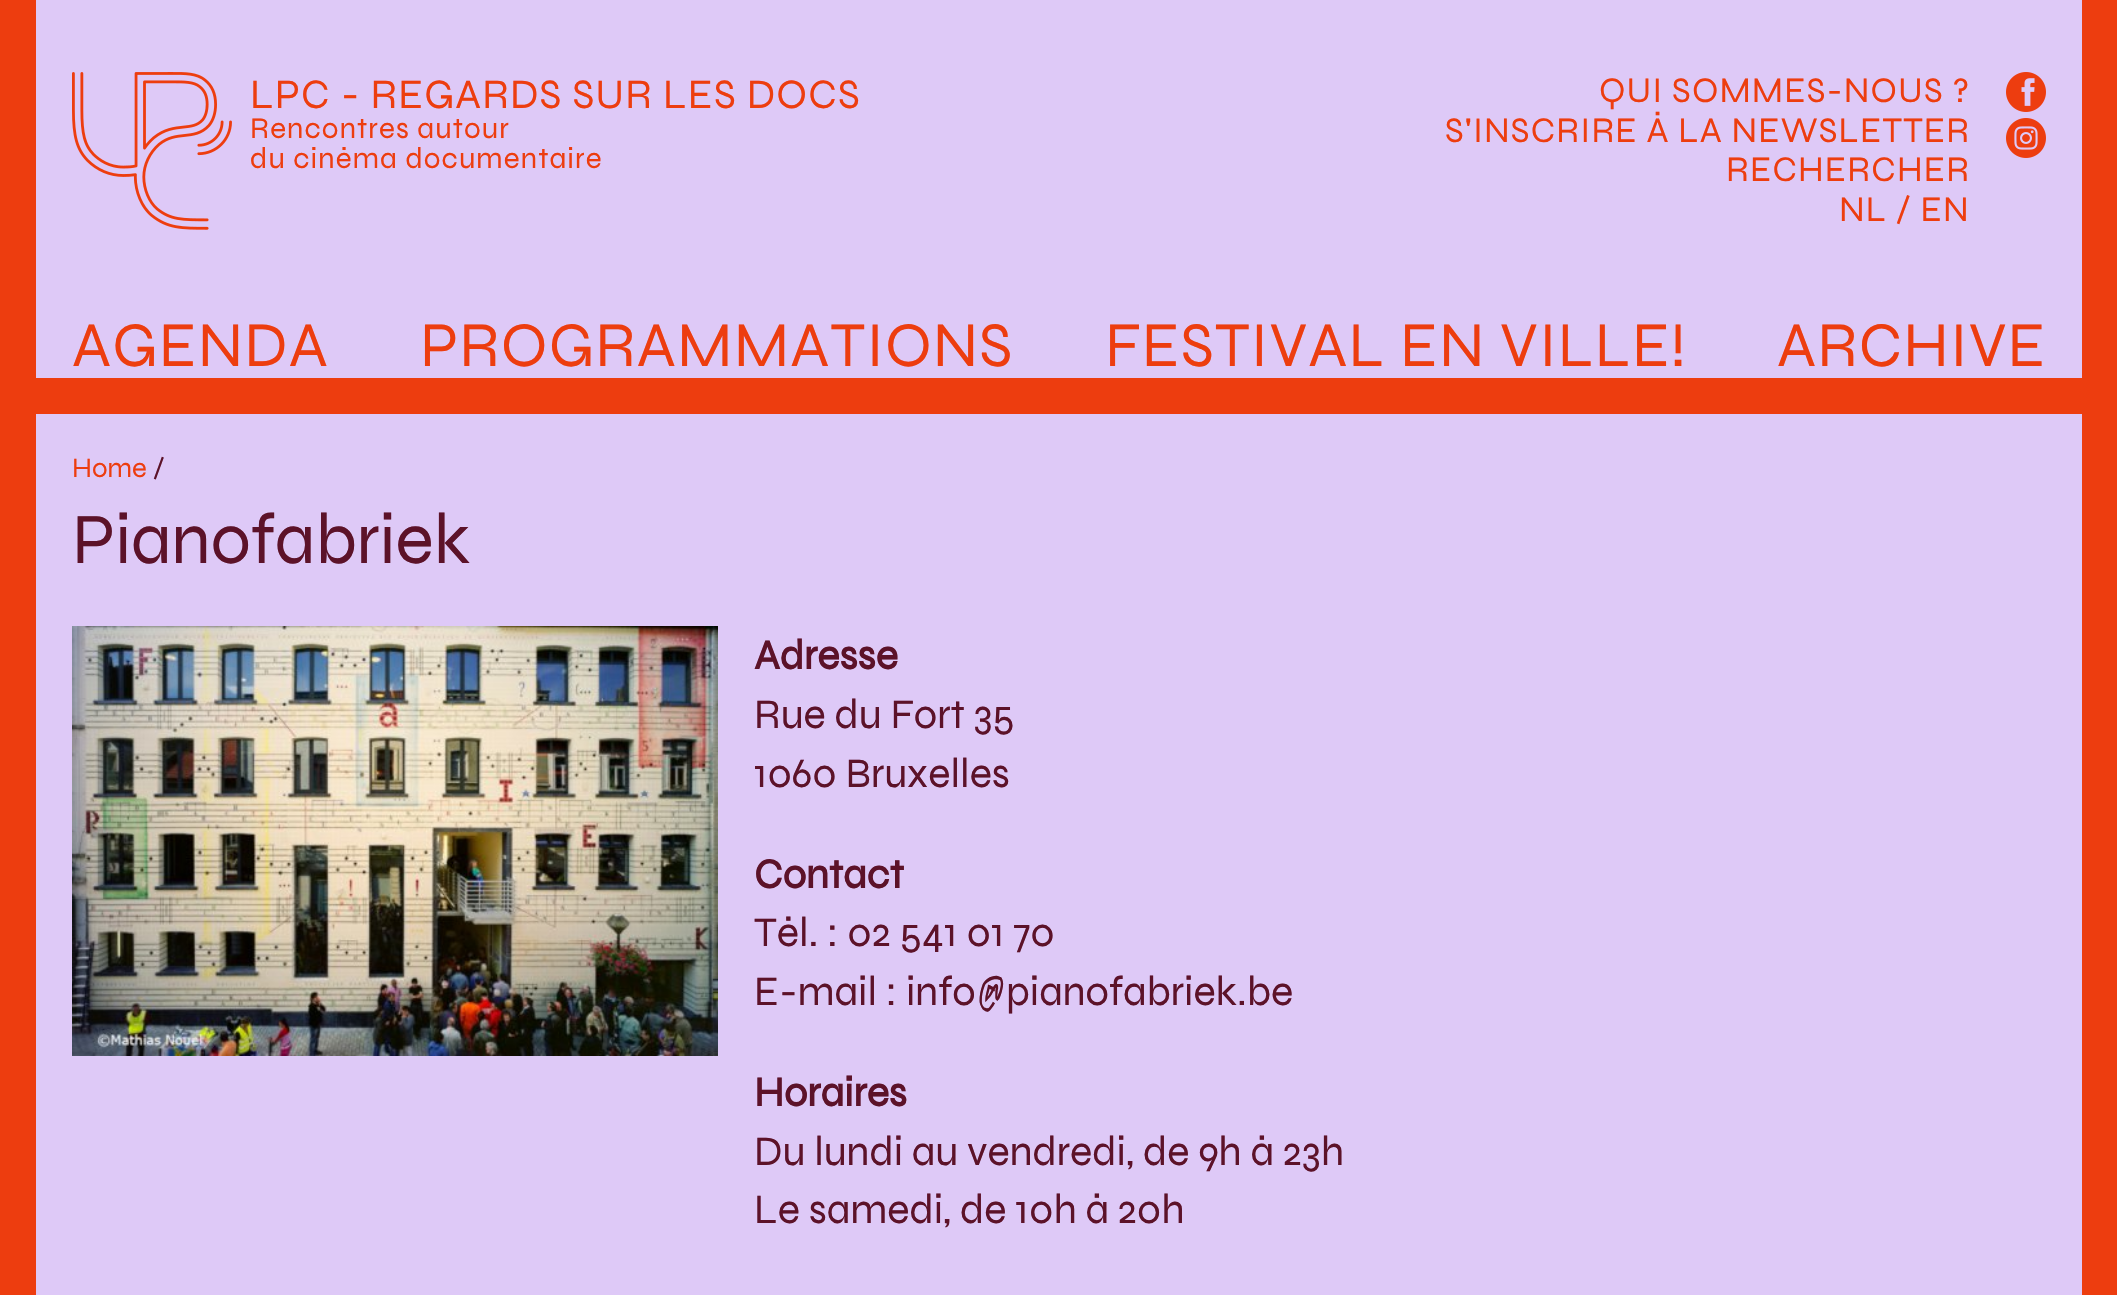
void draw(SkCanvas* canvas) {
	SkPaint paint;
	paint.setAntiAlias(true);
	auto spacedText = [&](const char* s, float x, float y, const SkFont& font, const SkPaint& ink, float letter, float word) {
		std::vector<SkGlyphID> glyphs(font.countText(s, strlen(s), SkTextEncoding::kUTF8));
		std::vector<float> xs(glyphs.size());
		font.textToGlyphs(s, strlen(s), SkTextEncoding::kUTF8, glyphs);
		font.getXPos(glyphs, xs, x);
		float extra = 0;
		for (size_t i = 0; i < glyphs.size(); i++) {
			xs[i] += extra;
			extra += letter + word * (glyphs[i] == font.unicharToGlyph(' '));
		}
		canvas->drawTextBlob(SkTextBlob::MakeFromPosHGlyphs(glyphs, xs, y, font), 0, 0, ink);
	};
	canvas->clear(0xffed3d0f);
	paint.setColor(0xffdec9f7);
	canvas->drawRect(SkRect::MakeXYWH(36, 0, 2046, 378), paint);
	SkFont f1(fontMgr->matchFamilyStyle("Syne", SkFontStyle::Normal()), 36);
	f1.setSubpixel(true);
	paint.setColor(0xffed3d0f);
	spacedText("QUI SOMMES-NOUS ?", 1599, 102, f1, paint, 1.1, 0);
	spacedText("S'INSCRIRE À LA NEWSLETTER", 1445, 142, f1, paint, 1.1, 0);
	spacedText("RECHERCHER", 1726, 181, f1, paint, 1.1, 0);
	spacedText("NL / EN", 1839, 221, f1, paint, 1.1, 0);
	canvas->drawImageRect(SkImages::DeferredFromEncodedData(SkData::MakeFromFileName("img1.png")), SkRect::MakeXYWH(2006, 72, 40, 40), SkSamplingOptions());
	canvas->drawImageRect(SkImages::DeferredFromEncodedData(SkData::MakeFromFileName("img2.png")), SkRect::MakeXYWH(2006, 118, 40, 40), SkSamplingOptions());
	SkFont f2(fontMgr->matchFamilyStyle("Syne", SkFontStyle::Normal()), 63.75);
	f2.setSubpixel(true);
	spacedText("AGENDA", 72, 366, f2, paint, 1.1, 0);
	spacedText("PROGRAMMATIONS", 420, 366, f2, paint, 1.1, 0);
	spacedText("FESTIVAL EN VILLE!", 1105, 366, f2, paint, 1.1, 0);
	spacedText("ARCHIVE", 1777, 366, f2, paint, 1.1, 0);
	canvas->drawImageRect(SkImages::DeferredFromEncodedData(SkData::MakeFromFileName("img3.png")), SkRect::MakeXYWH(72, 72, 160, 158), SkSamplingOptions());
	SkFont f3(fontMgr->matchFamilyStyle("Syne", SkFontStyle::Normal()), 42);
	f3.setSubpixel(true);
	spacedText("LPC - REGARDS SUR LES DOCS", 250, 108, f3, paint, 1.1, 0);
	SkFont f4(fontMgr->matchFamilyStyle("Syne", SkFontStyle::Normal()), 30);
	f4.setSubpixel(true);
	spacedText("Rencontres autour", 250, 138, f4, paint, 1.1, 0);
	spacedText("du cinéma documentaire", 250, 168, f4, paint, 1.1, 0);
	paint.setColor(0xffdec9f7);
	canvas->drawRect(SkRect::MakeXYWH(36, 414, 2046, 881), paint);
	SkFont f5(fontMgr->matchFamilyStyle("Syne", SkFontStyle::Normal()), 28);
	f5.setSubpixel(true);
	paint.setColor(0xffed3d0f);
	canvas->drawString("Home", 72, 477, f5, paint);
	paint.setColor(0xff5c1229);
	canvas->drawString("/", 153, 477, f5, paint);
	SkFont f6(fontMgr->matchFamilyStyle("Syne", SkFontStyle::Normal()), 72);
	f6.setSubpixel(true);
	canvas->drawString("Pianofabriek", 72, 563, f6, paint);
	canvas->drawImageRect(SkImages::DeferredFromEncodedData(SkData::MakeFromFileName("img4.png")), SkRect::MakeXYWH(72, 626, 646, 430), SkSamplingOptions());
	SkFont f7(fontMgr->matchFamilyStyle("Syne", SkFontStyle::Bold()), 42);
	f7.setSubpixel(true);
	canvas->drawString("Adresse", 754, 669, f7, paint);
	canvas->drawString("Rue du Fort 35", 754, 728, f3, paint);
	canvas->drawString("1060 Bruxelles", 754, 787, f3, paint);
	canvas->drawString("Contact", 754, 888, f7, paint);
	canvas->drawString("Tél. : 02 541 01 70", 754, 946, f3, paint);
	canvas->drawString("E-mail : info@pianofabriek.be", 754, 1005, f3, paint);
	canvas->drawString("Horaires", 754, 1106, f7, paint);
	canvas->drawString("Du lundi au vendredi, de 9h à 23h", 754, 1165, f3, paint);
	canvas->drawString("Le samedi, de 10h à 20h", 754, 1223, f3, paint);
}
